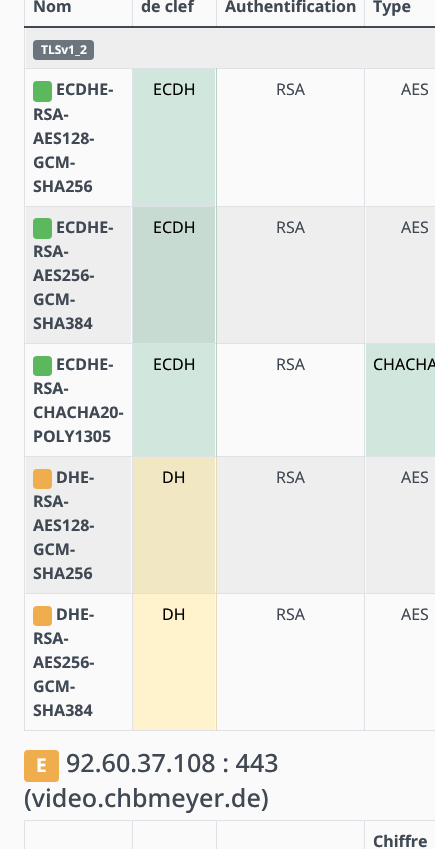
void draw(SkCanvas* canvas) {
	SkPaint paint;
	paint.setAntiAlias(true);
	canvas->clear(0xfffafafa);
	SkFont f1(fontMgr->matchFamilyStyle("Noto Sans", SkFontStyle::Bold()), 16);
	f1.setSubpixel(true);
	paint.setColor(0xff3f4853);
	canvas->drawString("Nom", 33, 12, f1, paint);
	paint.setColor(0xffdee2e6);
	canvas->drawRect(SkRect::MakeXYWH(132, 0, 1, 28), paint);
	paint.setColor(0xff3f4853);
	canvas->drawString("de clef", 141, 12, f1, paint);
	paint.setColor(0xffdee2e6);
	canvas->drawRect(SkRect::MakeXYWH(216, 0, 1, 28), paint);
	paint.setColor(0xff3f4853);
	canvas->drawString("Authentification", 225, 12, f1, paint);
	paint.setColor(0xffdee2e6);
	canvas->drawRect(SkRect::MakeXYWH(364, 0, 1, 28), paint);
	paint.setColor(0xff3f4853);
	canvas->drawString("Type", 373, 12, f1, paint);
	paint.setColor(0xffdee2e6);
	canvas->drawRect(SkRect::MakeXYWH(24, 68, 411, 1), paint);
	canvas->drawRect(SkRect::MakeXYWH(24, 206, 411, 1), paint);
	canvas->drawRect(SkRect::MakeXYWH(24, 343, 411, 1), paint);
	canvas->drawRect(SkRect::MakeXYWH(24, 456, 411, 1), paint);
	canvas->drawRect(SkRect::MakeXYWH(24, 593, 411, 1), paint);
	canvas->drawRect(SkRect::MakeXYWH(24, 730, 411, 1), paint);
	canvas->drawRect(SkRect::MakeXYWH(24, 0, 1, 731), paint);
	paint.setColor(0xff3f4853);
	canvas->drawRect(SkRect::MakeXYWH(24, 26, 411, 2), paint);
	paint.setColor(0xffeeeeee);
	canvas->drawRect(SkRect::MakeXYWH(26, 28, 409, 40), paint);
	paint.setColor(0xff6c757d);
	canvas->drawRoundRect(SkRect::MakeXYWH(33, 40, 61, 20), 4, 4, paint);
	SkFont f2(fontMgr->matchFamilyStyle("Noto Sans", SkFontStyle::Bold()), 12);
	f2.setSubpixel(true);
	paint.setColor(0xffffffff);
	canvas->drawString("TLSv1_2", 41, 54, f2, paint);
	paint.setColor(0xff5cb85c);
	canvas->drawRoundRect(SkRect::MakeXYWH(33, 81, 19, 21), 4, 4, paint);
	paint.setColor(0xff3f4853);
	canvas->drawString("ECDHE-", 56, 95, f1, paint);
	canvas->drawString("RSA-", 33, 120, f1, paint);
	canvas->drawString("AES128-", 33, 144, f1, paint);
	canvas->drawString("GCM-", 33, 168, f1, paint);
	canvas->drawString("SHA256", 33, 192, f1, paint);
	paint.setColor(0xffd1e7dd);
	canvas->drawRect(SkRect::MakeXYWH(133, 69, 82, 137), paint);
	SkFont f3(fontMgr->matchFamilyStyle("Noto Sans", SkFontStyle::Normal()), 16);
	f3.setSubpixel(true);
	paint.setColor(0xff000000);
	canvas->drawString("ECDH", 153, 95, f3, paint);
	paint.setColor(0xff3f4853);
	canvas->drawString("RSA", 276, 95, f3, paint);
	canvas->drawString("AES", 401, 95, f3, paint);
	paint.setColor(0xffeeeeee);
	canvas->drawRect(SkRect::MakeXYWH(26, 207, 105, 136), paint);
	paint.setColor(0xff5cb85c);
	canvas->drawRoundRect(SkRect::MakeXYWH(33, 218, 19, 21), 4, 4, paint);
	paint.setColor(0xff3f4853);
	canvas->drawString("ECDHE-", 56, 233, f1, paint);
	canvas->drawString("RSA-", 33, 257, f1, paint);
	canvas->drawString("AES256-", 33, 281, f1, paint);
	canvas->drawString("GCM-", 33, 305, f1, paint);
	canvas->drawString("SHA384", 33, 329, f1, paint);
	paint.setColor(0xffc7dbd2);
	canvas->drawRect(SkRect::MakeXYWH(133, 207, 82, 136), paint);
	paint.setColor(0xff000000);
	canvas->drawString("ECDH", 153, 233, f3, paint);
	paint.setColor(0xffeeeeee);
	canvas->drawRect(SkRect::MakeXYWH(217, 207, 147, 136), paint);
	paint.setColor(0xff3f4853);
	canvas->drawString("RSA", 276, 233, f3, paint);
	paint.setColor(0xffeeeeee);
	canvas->drawRect(SkRect::MakeXYWH(366, 207, 69, 136), paint);
	paint.setColor(0xff3f4853);
	canvas->drawString("AES", 401, 233, f3, paint);
	paint.setColor(0xff5cb85c);
	canvas->drawRoundRect(SkRect::MakeXYWH(33, 356, 19, 20), 4, 4, paint);
	paint.setColor(0xff3f4853);
	canvas->drawString("ECDHE-", 56, 370, f1, paint);
	canvas->drawString("RSA-", 33, 394, f1, paint);
	canvas->drawString("CHACHA20-", 33, 418, f1, paint);
	canvas->drawString("POLY1305", 33, 442, f1, paint);
	paint.setColor(0xffd1e7dd);
	canvas->drawRect(SkRect::MakeXYWH(133, 344, 82, 112), paint);
	paint.setColor(0xffe6dbb9);
	canvas->drawRect(SkRect::MakeXYWH(216, 456, 1, 275), paint);
	paint.setColor(0xffbcd0c7);
	canvas->drawRect(SkRect::MakeXYWH(216, 68, 1, 389), paint);
	paint.setColor(0xff000000);
	canvas->drawString("ECDH", 153, 370, f3, paint);
	paint.setColor(0xff3f4853);
	canvas->drawString("RSA", 276, 370, f3, paint);
	paint.setColor(0xffd1e7dd);
	canvas->drawRect(SkRect::MakeXYWH(366, 344, 69, 112), paint);
	paint.setColor(0xff000000);
	canvas->drawString("CHACHA", 373, 370, f3, paint);
	paint.setColor(0xffeeeeee);
	canvas->drawRect(SkRect::MakeXYWH(26, 457, 105, 136), paint);
	paint.setColor(0xfff0ad4e);
	canvas->drawRoundRect(SkRect::MakeXYWH(33, 469, 19, 20), 4, 4, paint);
	paint.setColor(0xff3f4853);
	canvas->drawString("DHE-", 56, 483, f1, paint);
	canvas->drawString("RSA-", 33, 507, f1, paint);
	canvas->drawString("AES128-", 33, 531, f1, paint);
	canvas->drawString("GCM-", 33, 555, f1, paint);
	canvas->drawString("SHA256", 33, 579, f1, paint);
	paint.setColor(0xfff2e7c3);
	canvas->drawRect(SkRect::MakeXYWH(133, 457, 82, 136), paint);
	paint.setColor(0xff000000);
	canvas->drawString("DH", 162, 483, f3, paint);
	paint.setColor(0xffeeeeee);
	canvas->drawRect(SkRect::MakeXYWH(217, 457, 147, 136), paint);
	paint.setColor(0xff3f4853);
	canvas->drawString("RSA", 276, 483, f3, paint);
	paint.setColor(0xffeeeeee);
	canvas->drawRect(SkRect::MakeXYWH(366, 457, 69, 136), paint);
	paint.setColor(0xff3f4853);
	canvas->drawString("AES", 401, 483, f3, paint);
	paint.setColor(0xffdee2e6);
	canvas->drawRect(SkRect::MakeXYWH(132, 68, 1, 663), paint);
	paint.setColor(0xfff0ad4e);
	canvas->drawRoundRect(SkRect::MakeXYWH(33, 606, 19, 20), 4, 4, paint);
	paint.setColor(0xff3f4853);
	canvas->drawString("DHE-", 56, 620, f1, paint);
	canvas->drawString("RSA-", 33, 644, f1, paint);
	canvas->drawString("AES256-", 33, 668, f1, paint);
	canvas->drawString("GCM-", 33, 692, f1, paint);
	canvas->drawString("SHA384", 33, 716, f1, paint);
	paint.setColor(0xfffff3cd);
	canvas->drawRect(SkRect::MakeXYWH(133, 594, 82, 136), paint);
	paint.setColor(0xff000000);
	canvas->drawString("DH", 162, 620, f3, paint);
	paint.setColor(0xff3f4853);
	canvas->drawString("RSA", 276, 620, f3, paint);
	paint.setColor(0xffdee2e6);
	canvas->drawRect(SkRect::MakeXYWH(364, 68, 1, 663), paint);
	paint.setColor(0xff3f4853);
	canvas->drawString("AES", 401, 620, f3, paint);
	paint.setColor(0xfff0ad4e);
	canvas->drawRoundRect(SkRect::MakeXYWH(24, 750, 35, 32), 4, 4, paint);
	SkFont f4(fontMgr->matchFamilyStyle("Noto Sans", SkFontStyle::Bold()), 19);
	f4.setSubpixel(true);
	paint.setColor(0xffffffff);
	canvas->drawString("E", 36, 772, f4, paint);
	SkFont f5(fontMgr->matchFamilyStyle("Noto Sans", SkFontStyle(500, SkFontStyle::kNormal_Width, SkFontStyle::kUpright_Slant)), 25.1);
	f5.setSubpixel(true);
	paint.setColor(0xff3f4853);
	canvas->drawString("92.60.37.108 : 443", 66, 772, f5, paint);
	canvas->drawString("(video.chbmeyer.de)", 24, 807, f5, paint);
	paint.setColor(0xffdee2e6);
	canvas->drawRect(SkRect::MakeXYWH(24, 820, 411, 1), paint);
	canvas->drawRect(SkRect::MakeXYWH(24, 820, 1, 29), paint);
	canvas->drawRect(SkRect::MakeXYWH(132, 820, 1, 29), paint);
	canvas->drawRect(SkRect::MakeXYWH(216, 820, 1, 29), paint);
	canvas->drawRect(SkRect::MakeXYWH(364, 820, 1, 29), paint);
	paint.setColor(0xff3f4853);
	canvas->drawString("Chiffre", 373, 847, f1, paint);
}
